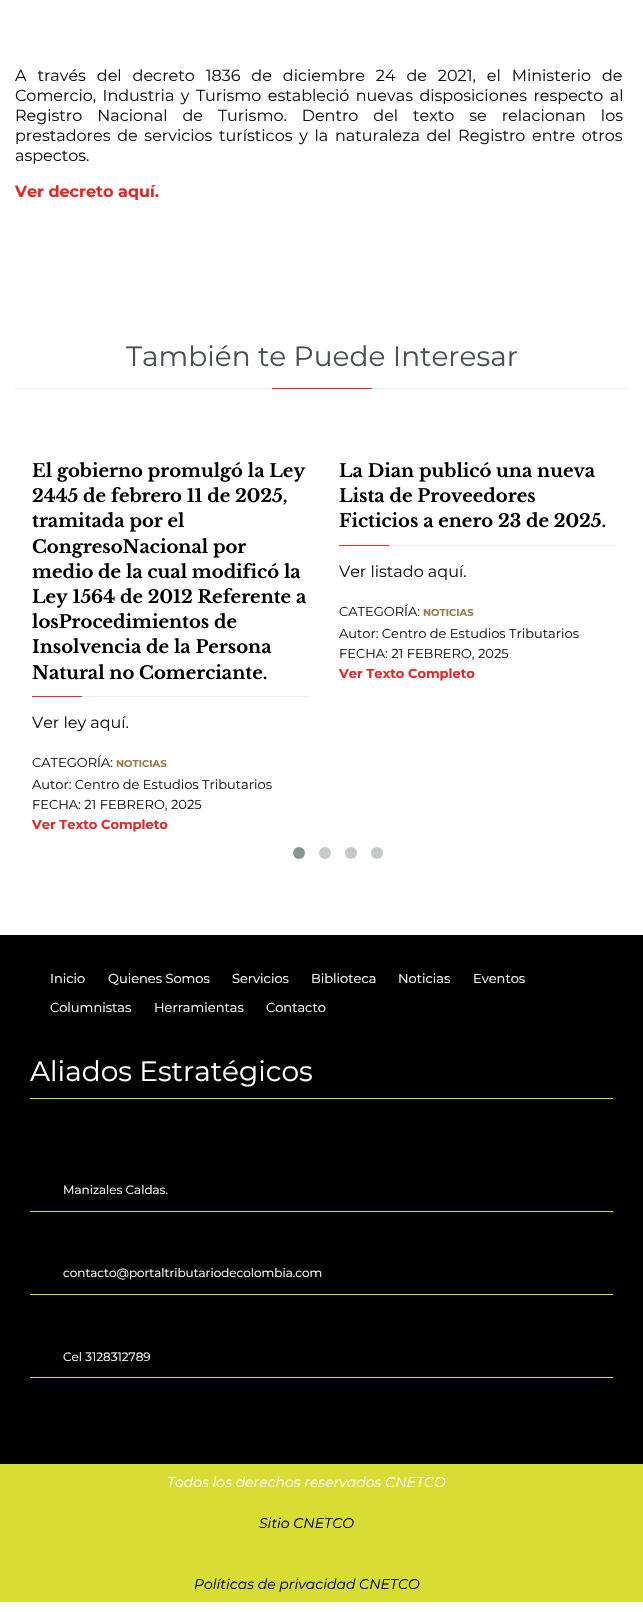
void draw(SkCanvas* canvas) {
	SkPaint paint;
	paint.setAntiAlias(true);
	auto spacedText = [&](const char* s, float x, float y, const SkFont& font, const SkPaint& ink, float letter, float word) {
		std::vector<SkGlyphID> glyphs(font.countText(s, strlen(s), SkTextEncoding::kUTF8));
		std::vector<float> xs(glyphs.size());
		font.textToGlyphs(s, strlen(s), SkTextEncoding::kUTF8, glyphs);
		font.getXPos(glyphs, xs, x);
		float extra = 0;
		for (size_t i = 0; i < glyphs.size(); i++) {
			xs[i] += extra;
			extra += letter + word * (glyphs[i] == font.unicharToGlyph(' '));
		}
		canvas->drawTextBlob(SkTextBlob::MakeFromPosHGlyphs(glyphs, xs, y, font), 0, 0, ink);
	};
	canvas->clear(0xffffffff);
	SkFont f1(fontMgr->matchFamilyStyle("Montserrat", SkFontStyle::Normal()), 16);
	f1.setSubpixel(true);
	paint.setColor(0xff171717);
	spacedText("A través del decreto 1836 de diciembre 24 de 2021, el Ministerio de", 15, 81, f1, paint, 0, 6.75);
	spacedText("Comercio, Industria y Turismo estableció nuevas disposiciones respecto al", 15, 101, f1, paint, 0, 2.25);
	spacedText("Registro Nacional de Turismo. Dentro del texto se relacionan los", 15, 121, f1, paint, 0, 10.75);
	spacedText("prestadores de servicios turísticos y la naturaleza del Registro entre otros", 15, 141, f1, paint, 0, 2.5);
	canvas->drawString("aspectos.", 15, 161, f1, paint);
	SkFont f2(fontMgr->matchFamilyStyle("Montserrat", SkFontStyle::Bold()), 16);
	f2.setSubpixel(true);
	paint.setColor(0xffe72626);
	canvas->drawString("Ver decreto aquí.", 15, 197, f2, paint);
	paint.setColor(0xffededed);
	canvas->drawRect(SkRect::MakeXYWH(15, 388, 613, 1), paint);
	SkFont f3(fontMgr->matchFamilyStyle("Montserrat", SkFontStyle::Normal()), 28);
	f3.setSubpixel(true);
	paint.setColor(0xff4a4f55);
	canvas->drawString("También te Puede Interesar", 126, 366, f3, paint);
	paint.setColor(0xffe62d2d);
	canvas->drawRect(SkRect::MakeXYWH(272, 388, 100, 1), paint);
	paint.setColor(0xffededed);
	canvas->drawRect(SkRect::MakeXYWH(82, 696, 227, 1), paint);
	SkFont f4(fontMgr->matchFamilyStyle("Libre Baskerville", SkFontStyle::Bold()), 18);
	f4.setSubpixel(true);
	paint.setColor(0xff000000);
	canvas->drawString("El gobierno promulgó la Ley", 32, 477, f4, paint);
	canvas->drawString("2445 de febrero 11 de 2025,", 32, 502, f4, paint);
	canvas->drawString("tramitada por el", 32, 527, f4, paint);
	canvas->drawString("CongresoNacional por", 32, 553, f4, paint);
	canvas->drawString("medio de la cual modificó la", 32, 578, f4, paint);
	canvas->drawString("Ley 1564 de 2012 Referente a", 32, 603, f4, paint);
	canvas->drawString("losProcedimientos de", 32, 628, f4, paint);
	canvas->drawString("Insolvencia de la Persona", 32, 653, f4, paint);
	canvas->drawString("Natural no Comerciante.", 32, 679, f4, paint);
	paint.setColor(0xffe62d2d);
	canvas->drawRect(SkRect::MakeXYWH(32, 696, 50, 1), paint);
	paint.setColor(0xff171717);
	canvas->drawString("Ver ley aquí.", 32, 728, f1, paint);
	SkFont f5(fontMgr->matchFamilyStyle("Montserrat", SkFontStyle::Normal()), 13);
	f5.setSubpixel(true);
	canvas->drawString("CATEGORÍA:", 32, 767, f5, paint);
	SkFont f6(fontMgr->matchFamilyStyle("Montserrat", SkFontStyle::Bold()), 10);
	f6.setSubpixel(true);
	paint.setColor(0xff9b7b4d);
	canvas->drawString("NOTICIAS", 116, 767, f6, paint);
	paint.setColor(0xff171717);
	canvas->drawString("Autor: Centro de Estudios Tributarios", 32, 789, f5, paint);
	canvas->drawString("FECHA: 21 FEBRERO, 2025", 32, 809, f5, paint);
	SkFont f7(fontMgr->matchFamilyStyle("Montserrat", SkFontStyle::Bold()), 13);
	f7.setSubpixel(true);
	paint.setColor(0xffe72626);
	canvas->drawString("Ver Texto Completo", 32, 829, f7, paint);
	paint.setColor(0xffededed);
	canvas->drawRect(SkRect::MakeXYWH(389, 545, 227, 1), paint);
	paint.setColor(0xff000000);
	canvas->drawString("La Dian publicó una nueva", 339, 477, f4, paint);
	canvas->drawString("Lista de Proveedores", 339, 502, f4, paint);
	canvas->drawString("Ficticios a enero 23 de 2025.", 339, 527, f4, paint);
	paint.setColor(0xffe62d2d);
	canvas->drawRect(SkRect::MakeXYWH(339, 545, 50, 1), paint);
	paint.setColor(0xff171717);
	canvas->drawString("Ver listado aquí.", 339, 577, f1, paint);
	canvas->drawString("CATEGORÍA:", 339, 616, f5, paint);
	paint.setColor(0xff9b7b4d);
	canvas->drawString("NOTICIAS", 423, 616, f6, paint);
	paint.setColor(0xff171717);
	canvas->drawString("Autor: Centro de Estudios Tributarios", 339, 638, f5, paint);
	canvas->drawString("FECHA: 21 FEBRERO, 2025", 339, 658, f5, paint);
	paint.setColor(0xffe72626);
	canvas->drawString("Ver Texto Completo", 339, 678, f7, paint);
	paint.setColor(0xff869791);
	canvas->drawCircle(299, 853, 6, paint);
	paint.setColor(0xffc3cbc8);
	canvas->drawCircle(325, 853, 6, paint);
	canvas->drawCircle(351, 853, 6, paint);
	canvas->drawCircle(377, 853, 6, paint);
	paint.setColor(0xff000000);
	canvas->drawRect(SkRect::MakeXYWH(0, 935, 643, 529), paint);
	paint.setColor(0xffffffff);
	canvas->drawString("Inicio", 50, 983, f5, paint);
	canvas->drawString("Quienes Somos", 108, 983, f5, paint);
	canvas->drawString("Servicios", 232, 983, f5, paint);
	canvas->drawString("Biblioteca", 311, 983, f5, paint);
	canvas->drawString("Noticias", 398, 983, f5, paint);
	canvas->drawString("Eventos", 473, 983, f5, paint);
	canvas->drawString("Columnistas", 50, 1012, f5, paint);
	canvas->drawString("Herramientas", 154, 1012, f5, paint);
	canvas->drawString("Contacto", 266, 1012, f5, paint);
	paint.setColor(0xffd8dc33);
	canvas->drawRect(SkRect::MakeXYWH(30, 1098, 583, 1), paint);
	paint.setColor(0xffffffff);
	canvas->drawString("Aliados Estratégicos", 30, 1081, f3, paint);
	paint.setColor(0xffd8dc33);
	canvas->drawRect(SkRect::MakeXYWH(30, 1211, 583, 1), paint);
	SkFont f8(fontMgr->matchFamilyStyle("Montserrat", SkFontStyle::Normal()), 12);
	f8.setSubpixel(true);
	paint.setColor(0xffffffff);
	canvas->drawString("Manizales Caldas.", 63, 1194, f8, paint);
	paint.setColor(0xffd8dc33);
	canvas->drawRect(SkRect::MakeXYWH(30, 1294, 583, 1), paint);
	paint.setColor(0xffffffff);
	canvas->drawString("contacto@portaltributariodecolombia.com", 63, 1277, f8, paint);
	paint.setColor(0xffd8dc33);
	canvas->drawRect(SkRect::MakeXYWH(30, 1377, 583, 1), paint);
	paint.setColor(0xffffffff);
	canvas->drawString("Cel 3128312789", 63, 1361, f8, paint);
	paint.setColor(0xffd8dc33);
	canvas->drawRect(SkRect::MakeXYWH(0, 1464, 643, 138), paint);
	SkFont f9(fontMgr->matchFamilyStyle("Montserrat", SkFontStyle::Italic()), 14);
	f9.setSubpixel(true);
	paint.setColor(0xffffffff);
	canvas->drawString("Todos los derechos reservados CNETCO", 167, 1487, f9, paint);
	paint.setColor(0xff000000);
	canvas->drawString("Sitio CNETCO", 259, 1528, f9, paint);
	canvas->drawString("Políticas de privacidad CNETCO", 194, 1589, f9, paint);
}
